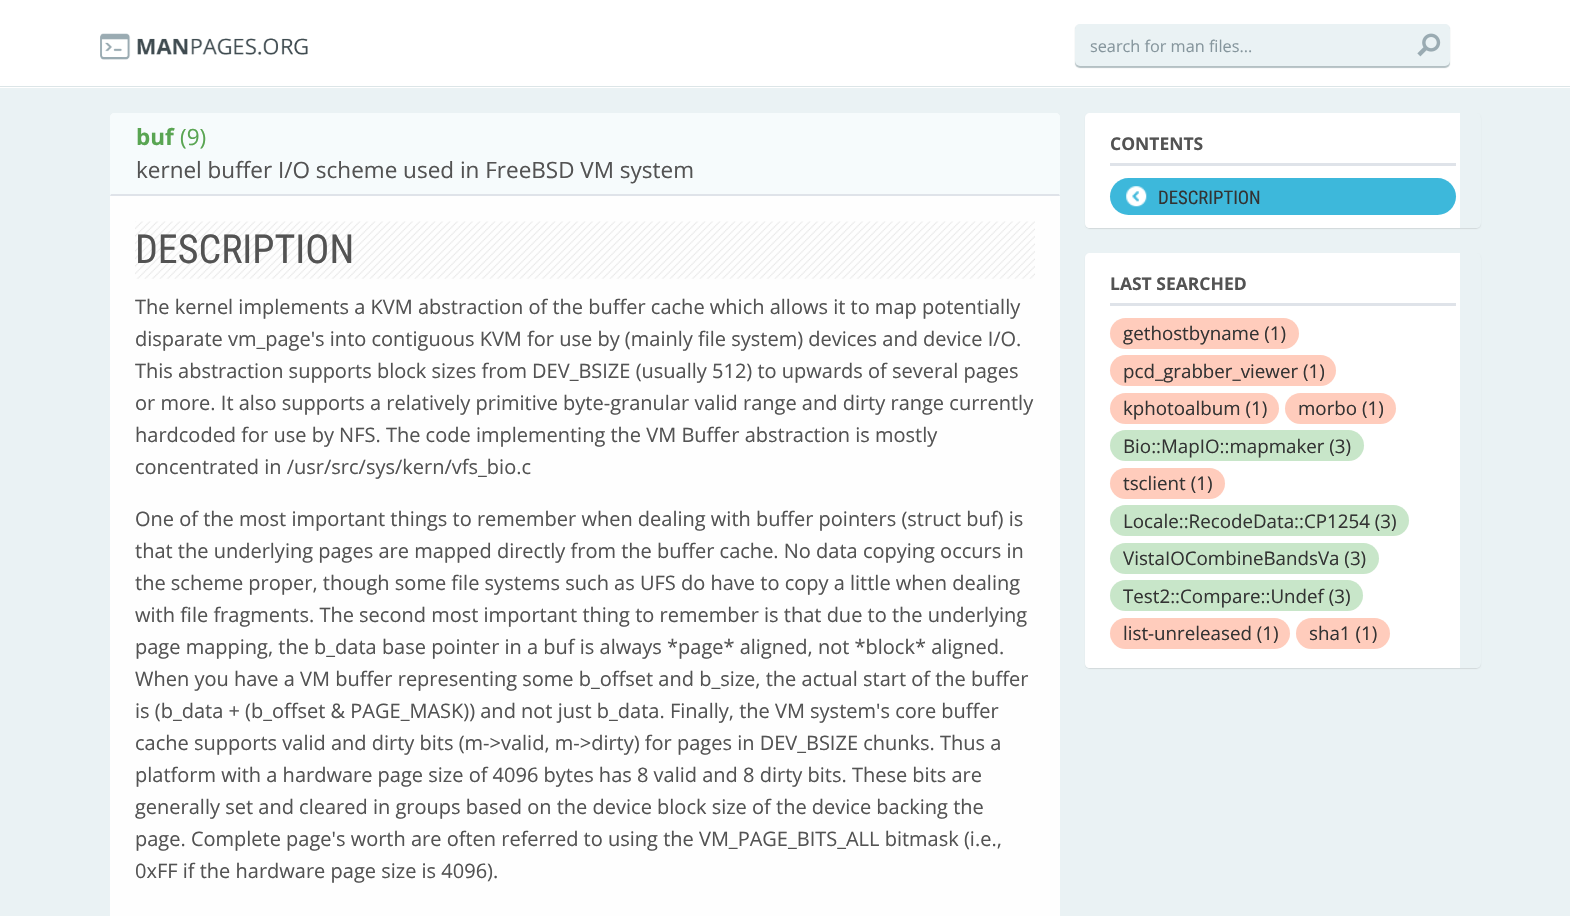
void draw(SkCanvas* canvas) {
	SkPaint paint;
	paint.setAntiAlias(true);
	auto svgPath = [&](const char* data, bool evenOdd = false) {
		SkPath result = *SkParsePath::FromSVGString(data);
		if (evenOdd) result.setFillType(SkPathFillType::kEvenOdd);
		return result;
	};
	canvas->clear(0xffeaf2f4);
	paint.setColor(0xffffffff);
	canvas->drawRect(SkRect::MakeXYWH(0, 0, 1570, 88), paint);
	paint.setColor(0xffdce5e7);
	canvas->drawRect(SkRect::MakeXYWH(0, 86, 1570, 1), paint);
	canvas->drawImageRect(SkImages::DeferredFromEncodedData(SkData::MakeFromFileName("img1.png")), SkRect::MakeXYWH(100, 33, 208, 27), SkSamplingOptions());
	paint.setColor(0x4d062f37);
	paint.setMaskFilter(SkMaskFilter::MakeBlur(kNormal_SkBlurStyle, 0.5));
	canvas->drawRoundRect(SkRect::MakeXYWH(1075, 25, 375, 43), 5, 5, paint);
	paint.setMaskFilter(nullptr);
	paint.setColor(0xffeaf2f4);
	canvas->drawRoundRect(SkRect::MakeXYWH(1075, 24, 375, 42), 5, 5, paint);
	SkFont f1(fontMgr->matchFamilyStyle("Open Sans", SkFontStyle::Normal()), 16.25);
	f1.setSubpixel(true);
	paint.setColor(0xff86969d);
	canvas->drawString("search for man files...", 1090, 52, f1, paint);
	canvas->drawImageRect(SkImages::DeferredFromEncodedData(SkData::MakeFromFileName("img2.png")), SkRect::MakeXYWH(1417, 33, 24, 24), SkSamplingOptions());
	paint.setColor(0xfffefefe);
	canvas->drawPath(svgPath("M115 113H1055C1058 113 1060 115 1060 118V916H110V118C110 115 112 113 115 113Z"), paint);
	paint.setColor(0xfff6fbfc);
	canvas->drawPath(svgPath("M114 113H1056C1058 113 1060 115 1060 117V196H110V117C110 115 112 113 114 113Z"), paint);
	paint.setColor(0xffdfe3e9);
	canvas->drawPath(svgPath("M1060 196H110L111 194H1059Z"), paint);
	SkFont f2(fontMgr->matchFamilyStyle("Open Sans", SkFontStyle::Bold()), 22.5);
	f2.setSubpixel(true);
	paint.setColor(0xff59a552);
	canvas->drawString("buf", 136, 145, f2, paint);
	SkFont f3(fontMgr->matchFamilyStyle("Open Sans", SkFontStyle::Normal()), 22.5);
	f3.setSubpixel(true);
	canvas->drawString("(9)", 180, 145, f3, paint);
	paint.setColor(0xff535353);
	canvas->drawString("kernel buffer I/O scheme used in FreeBSD VM system", 136, 178, f3, paint);
	canvas->drawImageRect(SkImages::DeferredFromEncodedData(SkData::MakeFromFileName("img3.png")), SkRect::MakeXYWH(135, 221, 900, 58), SkSamplingOptions());
	SkFont f4(fontMgr->matchFamilyStyle("Roboto Condensed", SkFontStyle::Normal()), 40);
	f4.setSubpixel(true);
	canvas->drawString("DESCRIPTION", 135, 263, f4, paint);
	SkFont f5(fontMgr->matchFamilyStyle("Open Sans", SkFontStyle::Normal()), 20);
	f5.setSubpixel(true);
	canvas->drawString("The kernel implements a KVM abstraction of the buffer cache which allows it to map potentially", 135, 314, f5, paint);
	canvas->drawString("disparate vm_page's into contiguous KVM for use by (mainly file system) devices and device I/O.", 135, 346, f5, paint);
	canvas->drawString("This abstraction supports block sizes from DEV_BSIZE (usually 512) to upwards of several pages", 135, 378, f5, paint);
	canvas->drawString("or more. It also supports a relatively primitive byte-granular valid range and dirty range currently", 135, 410, f5, paint);
	canvas->drawString("hardcoded for use by NFS. The code implementing the VM Buffer abstraction is mostly", 135, 442, f5, paint);
	canvas->drawString("concentrated in /usr/src/sys/kern/vfs_bio.c", 135, 474, f5, paint);
	canvas->drawString("One of the most important things to remember when dealing with buffer pointers (struct buf) is", 135, 526, f5, paint);
	canvas->drawString("that the underlying pages are mapped directly from the buffer cache. No data copying occurs in", 135, 558, f5, paint);
	canvas->drawString("the scheme proper, though some file systems such as UFS do have to copy a little when dealing", 135, 590, f5, paint);
	canvas->drawString("with file fragments. The second most important thing to remember is that due to the underlying", 135, 622, f5, paint);
	canvas->drawString("page mapping, the b_data base pointer in a buf is always *page* aligned, not *block* aligned.", 135, 654, f5, paint);
	canvas->drawString("When you have a VM buffer representing some b_offset and b_size, the actual start of the buffer", 135, 686, f5, paint);
	canvas->drawString("is (b_data + (b_offset & PAGE_MASK)) and not just b_data. Finally, the VM system's core buffer", 135, 718, f5, paint);
	canvas->drawString("cache supports valid and dirty bits (m->valid, m->dirty) for pages in DEV_BSIZE chunks. Thus a", 135, 750, f5, paint);
	canvas->drawString("platform with a hardware page size of 4096 bytes has 8 valid and 8 dirty bits. These bits are", 135, 782, f5, paint);
	canvas->drawString("generally set and cleared in groups based on the device block size of the device backing the", 135, 814, f5, paint);
	canvas->drawString("page. Complete page's worth are often referred to using the VM_PAGE_BITS_ALL bitmask (i.e.,", 135, 846, f5, paint);
	canvas->drawString("0xFF if the hardware page size is 4096).", 135, 878, f5, paint);
	canvas->save();
	canvas->clipPath(svgPath("M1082 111H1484V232H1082ZM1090 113H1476C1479 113 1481 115 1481 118V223C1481 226 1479 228 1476 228H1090C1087 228 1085 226 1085 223V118C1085 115 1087 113 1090 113Z", true), true);
	paint.setColor(0x1a000000);
	paint.setMaskFilter(SkMaskFilter::MakeBlur(kNormal_SkBlurStyle, 0.5));
	canvas->drawRoundRect(SkRect::MakeXYWH(1085, 114, 396, 115), 5, 5, paint);
	paint.setMaskFilter(nullptr);
	canvas->restore();
	paint.setColor(0xffffffff);
	canvas->drawPath(svgPath("M1090 113H1460V228H1090C1087 228 1085 226 1085 223V118C1085 115 1087 113 1090 113Z"), paint);
	paint.setColor(0xffdfe3e9);
	canvas->drawRect(SkRect::MakeXYWH(1110, 163, 346, 3), paint);
	SkFont f6(fontMgr->matchFamilyStyle("Open Sans", SkFontStyle::Bold()), 17.5);
	f6.setSubpixel(true);
	paint.setColor(0xff535353);
	canvas->drawString("CONTENTS", 1110, 150, f6, paint);
	paint.setColor(0xff3db8db);
	canvas->drawRoundRect(SkRect::MakeXYWH(1110, 178, 346, 37), 18.5, 18.5, paint);
	canvas->drawImageRect(SkImages::DeferredFromEncodedData(SkData::MakeFromFileName("img4.png")), SkRect::MakeXYWH(1126, 186, 21, 21), SkSamplingOptions());
	SkFont f7(fontMgr->matchFamilyStyle("Roboto Condensed", SkFontStyle::Normal()), 18.75);
	f7.setSubpixel(true);
	paint.setColor(0xff333333);
	canvas->drawString("DESCRIPTION", 1158, 204, f7, paint);
	canvas->save();
	canvas->clipPath(svgPath("M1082 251H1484V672H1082ZM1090 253H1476C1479 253 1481 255 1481 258V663C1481 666 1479 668 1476 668H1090C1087 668 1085 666 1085 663V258C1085 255 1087 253 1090 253Z", true), true);
	paint.setColor(0x1a000000);
	paint.setMaskFilter(SkMaskFilter::MakeBlur(kNormal_SkBlurStyle, 0.5));
	canvas->drawRoundRect(SkRect::MakeXYWH(1085, 254, 396, 415), 5, 5, paint);
	paint.setMaskFilter(nullptr);
	canvas->restore();
	paint.setColor(0xffffffff);
	canvas->drawPath(svgPath("M1090 253H1460V668H1090C1087 668 1085 666 1085 663V258C1085 255 1087 253 1090 253Z"), paint);
	paint.setColor(0xffdfe3e9);
	canvas->drawRect(SkRect::MakeXYWH(1110, 303, 346, 3), paint);
	paint.setColor(0xff535353);
	canvas->drawString("LAST SEARCHED", 1110, 290, f6, paint);
	paint.setColor(0xffffccbc);
	canvas->drawRoundRect(SkRect::MakeXYWH(1110, 318, 189, 31), 15.5, 15.5, paint);
	SkFont f8(fontMgr->matchFamilyStyle("Open Sans", SkFontStyle::Normal()), 18.75);
	f8.setSubpixel(true);
	paint.setColor(0xff333333);
	canvas->drawString("gethostbyname (1)", 1123, 340, f8, paint);
	paint.setColor(0xffffccbc);
	canvas->drawRoundRect(SkRect::MakeXYWH(1110, 355, 226, 31), 15.5, 15.5, paint);
	paint.setColor(0xff333333);
	canvas->drawString("pcd_grabber_viewer (1)", 1123, 378, f8, paint);
	paint.setColor(0xffffccbc);
	canvas->drawRoundRect(SkRect::MakeXYWH(1110, 393, 169, 31), 15.5, 15.5, paint);
	paint.setColor(0xff333333);
	canvas->drawString("kphotoalbum (1)", 1123, 415, f8, paint);
	paint.setColor(0xffffccbc);
	canvas->drawRoundRect(SkRect::MakeXYWH(1285, 393, 111, 31), 15.5, 15.5, paint);
	paint.setColor(0xff333333);
	canvas->drawString("morbo (1)", 1298, 415, f8, paint);
	paint.setColor(0xffc8e6c9);
	canvas->drawRoundRect(SkRect::MakeXYWH(1110, 430, 254, 31), 15.5, 15.5, paint);
	paint.setColor(0xff333333);
	canvas->drawString("Bio::MapIO::mapmaker (3)", 1123, 453, f8, paint);
	paint.setColor(0xffffccbc);
	canvas->drawRoundRect(SkRect::MakeXYWH(1110, 468, 115, 31), 15.5, 15.5, paint);
	paint.setColor(0xff333333);
	canvas->drawString("tsclient (1)", 1123, 490, f8, paint);
	paint.setColor(0xffc8e6c9);
	canvas->drawRoundRect(SkRect::MakeXYWH(1110, 505, 299, 31), 15.5, 15.5, paint);
	paint.setColor(0xff333333);
	canvas->drawString("Locale::RecodeData::CP1254 (3)", 1123, 528, f8, paint);
	paint.setColor(0xffc8e6c9);
	canvas->drawRoundRect(SkRect::MakeXYWH(1110, 543, 269, 31), 15.5, 15.5, paint);
	paint.setColor(0xff333333);
	canvas->drawString("VistaIOCombineBandsVa (3)", 1123, 565, f8, paint);
	paint.setColor(0xffc8e6c9);
	canvas->drawRoundRect(SkRect::MakeXYWH(1110, 580, 253, 31), 15.5, 15.5, paint);
	paint.setColor(0xff333333);
	canvas->drawString("Test2::Compare::Undef (3)", 1123, 603, f8, paint);
	paint.setColor(0xffffccbc);
	canvas->drawRoundRect(SkRect::MakeXYWH(1110, 618, 180, 31), 15.5, 15.5, paint);
	paint.setColor(0xff333333);
	canvas->drawString("list-unreleased (1)", 1123, 640, f8, paint);
	paint.setColor(0xffffccbc);
	canvas->drawRoundRect(SkRect::MakeXYWH(1296, 618, 94, 31), 15.5, 15.5, paint);
	paint.setColor(0xff333333);
	canvas->drawString("sha1 (1)", 1309, 640, f8, paint);
}
